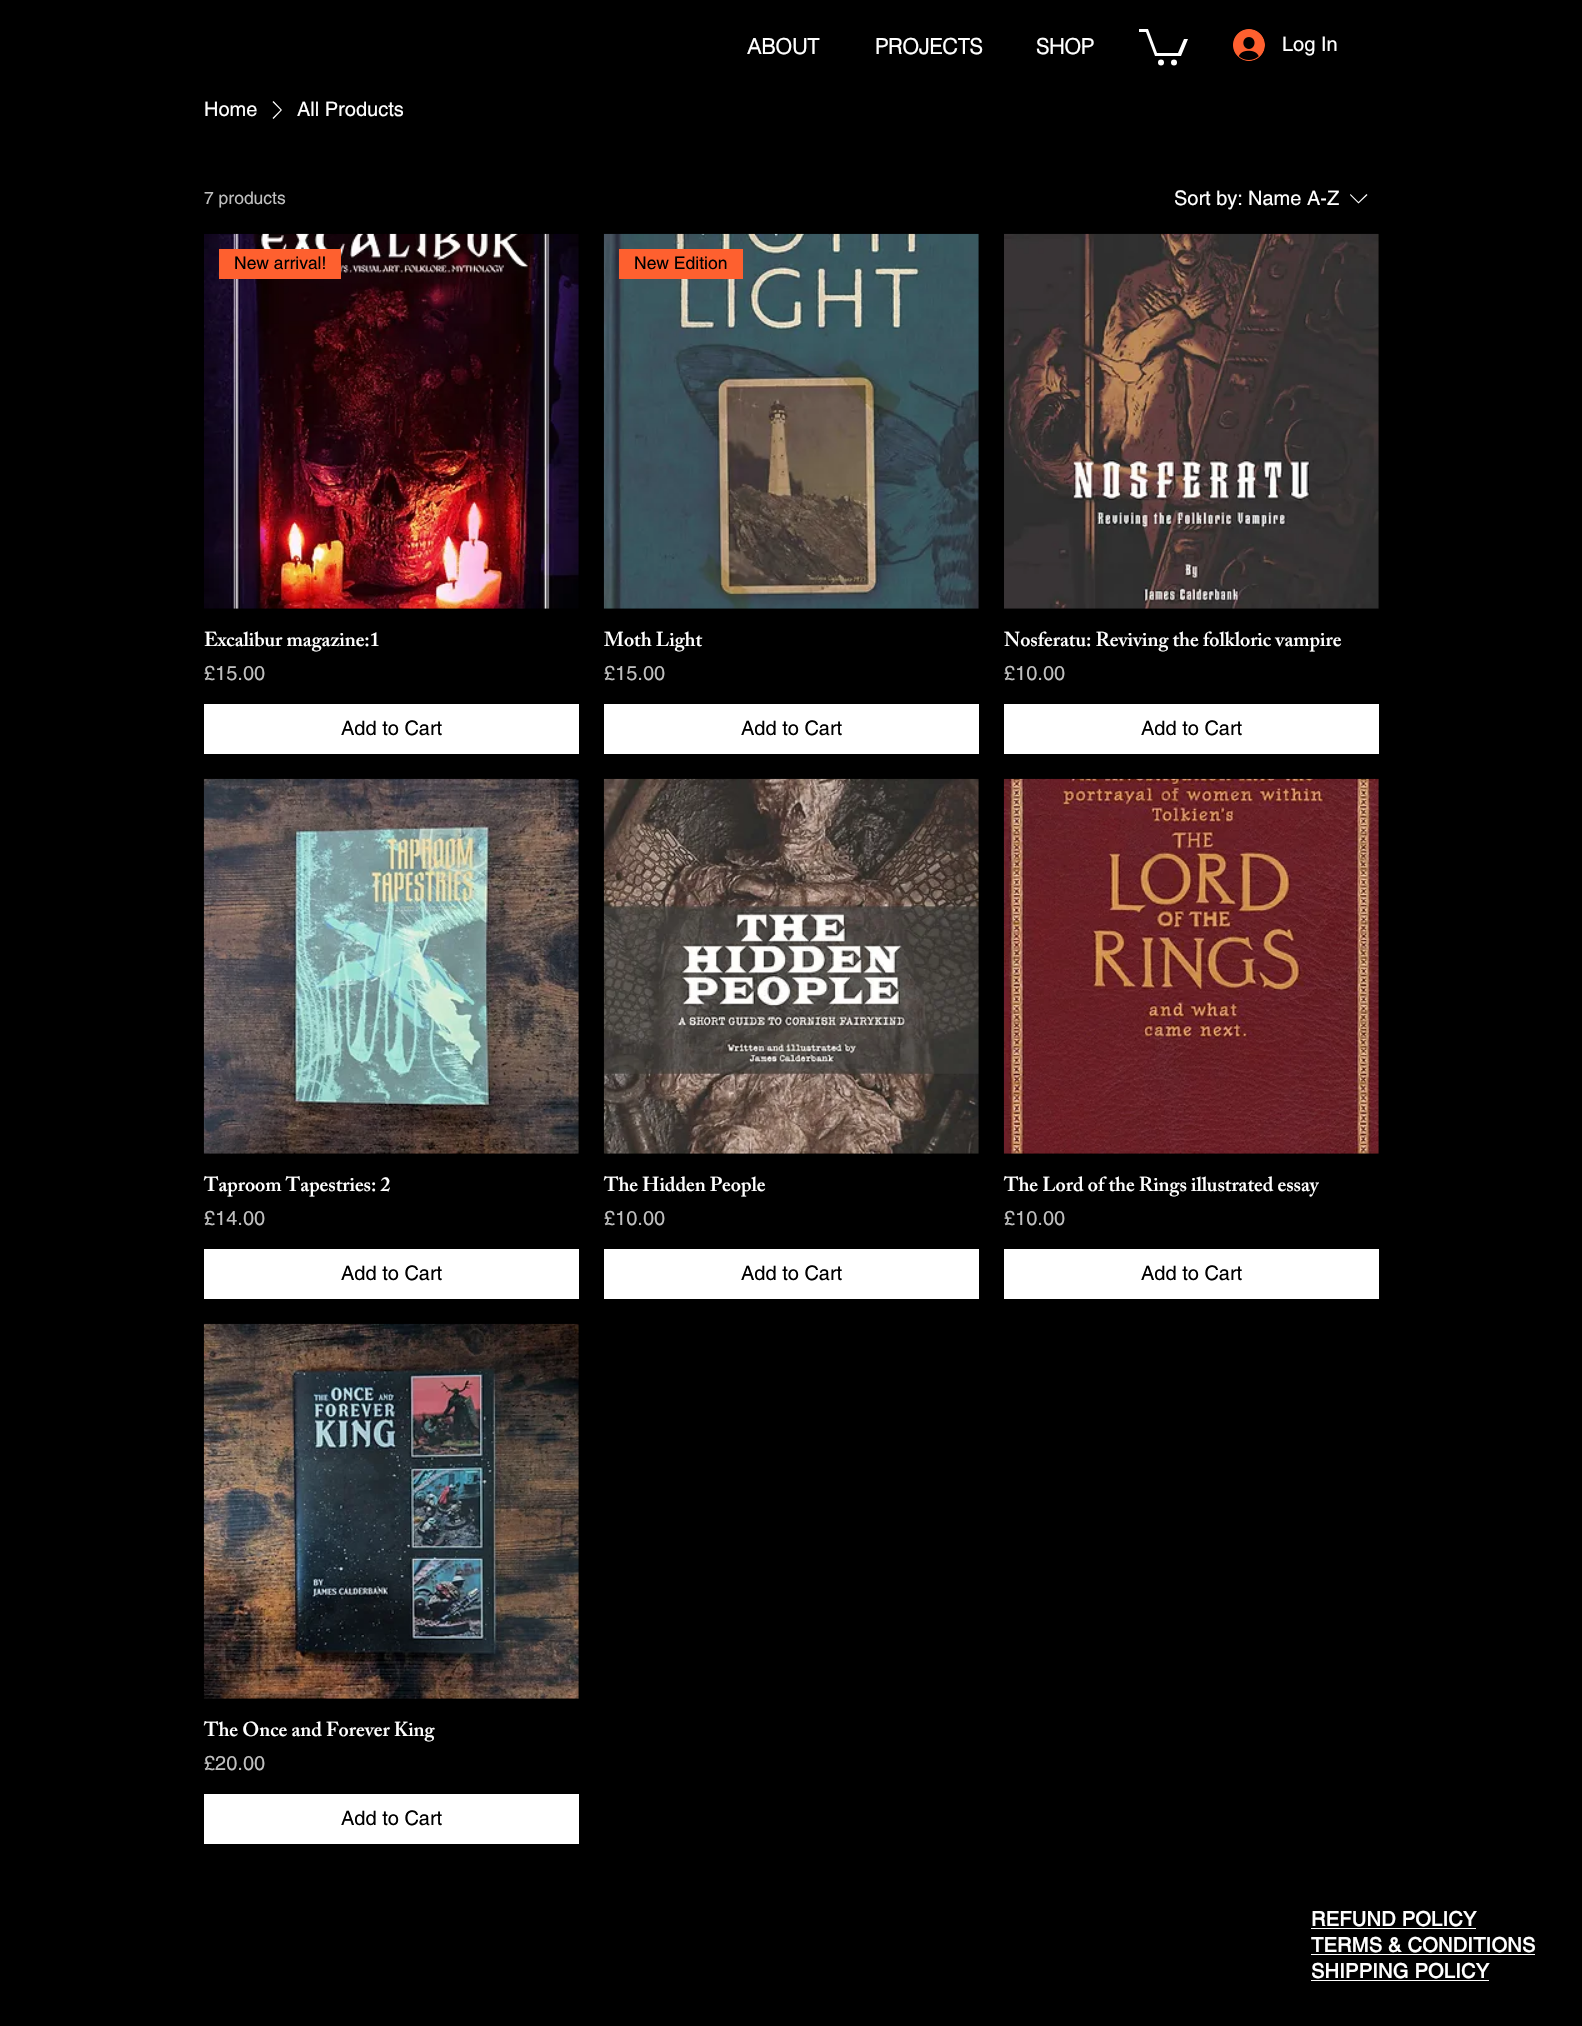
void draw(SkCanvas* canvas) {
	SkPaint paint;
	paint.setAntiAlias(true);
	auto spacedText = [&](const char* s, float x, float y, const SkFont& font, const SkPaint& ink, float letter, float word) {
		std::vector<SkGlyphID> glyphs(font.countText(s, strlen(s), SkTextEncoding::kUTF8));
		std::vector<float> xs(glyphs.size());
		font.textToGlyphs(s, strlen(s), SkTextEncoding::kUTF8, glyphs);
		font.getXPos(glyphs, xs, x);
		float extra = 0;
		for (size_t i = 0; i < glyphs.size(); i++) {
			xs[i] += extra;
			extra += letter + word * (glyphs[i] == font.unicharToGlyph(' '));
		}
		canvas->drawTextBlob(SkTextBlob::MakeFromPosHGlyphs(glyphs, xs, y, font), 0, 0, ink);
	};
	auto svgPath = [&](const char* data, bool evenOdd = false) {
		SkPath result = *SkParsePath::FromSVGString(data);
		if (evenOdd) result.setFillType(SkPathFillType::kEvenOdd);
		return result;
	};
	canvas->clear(0xff000000);
	SkFont f1(fontMgr->matchFamilyStyle("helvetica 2", SkFontStyle::Bold()), 21.25);
	f1.setSubpixel(true);
	paint.setColor(0xffffffff);
	canvas->drawString("ABOUT", 747, 54, f1, paint);
	canvas->drawString("PROJECTS", 875, 54, f1, paint);
	canvas->drawString("SHOP", 1036, 54, f1, paint);
	canvas->drawPath(svgPath("M1188 39L1181 56H1155L1146 32H1139V29H1148L1157 53H1178L1184 39"), paint);
	canvas->drawCircle(1174, 62.5, 3, paint);
	canvas->drawCircle(1161, 62.5, 3, paint);
	canvas->drawImageRect(SkImages::DeferredFromEncodedData(SkData::MakeFromFileName("img1.png")), SkRect::MakeXYWH(1233, 29, 32, 32), SkSamplingOptions());
	SkFont f2(fontMgr->matchFamilyStyle("helvetica", SkFontStyle::Normal()), 20);
	f2.setSubpixel(true);
	canvas->drawString("Log In", 1282, 51, f2, paint);
	canvas->drawString("Home", 204, 116, f2, paint);
	canvas->drawPath(svgPath("M273.5 101L282 110L273.5 119L272.5 118L280.5 110L272.5 102Z", true), paint);
	canvas->drawString("All Products", 297, 116, f2, paint);
	SkFont f3(fontMgr->matchFamilyStyle("helvetica", SkFontStyle::Normal()), 17.5);
	f3.setSubpixel(true);
	paint.setColor(0xffbfbfbf);
	canvas->drawString("7 products", 204, 204, f3, paint);
	paint.setColor(0xffffffff);
	canvas->drawString("Sort by:", 1174, 205, f2, paint);
	canvas->drawString("Name A-Z", 1248, 205, f2, paint);
	canvas->drawPath(svgPath("M1366.5 194L1367.5 195L1358.5 203.5L1350 195L1350.5 194L1358.5 202Z", true), paint);
	canvas->drawImageRect(SkImages::DeferredFromEncodedData(SkData::MakeFromFileName("img2.png")), SkRect::MakeXYWH(204, 233, 375, 376), SkSamplingOptions());
	paint.setColor(0xfffe602f);
	canvas->drawRect(SkRect::MakeXYWH(219, 249, 122, 30), paint);
	paint.setColor(0xff000000);
	canvas->drawString("New arrival!", 234, 269, f3, paint);
	SkFont f4(fontMgr->matchFamilyStyle("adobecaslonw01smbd", SkFontStyle(600, SkFontStyle::kNormal_Width, SkFontStyle::kUpright_Slant)), 20);
	f4.setSubpixel(true);
	paint.setColor(0xffffffff);
	canvas->drawString("Excalibur magazine:1", 204, 646, f4, paint);
	paint.setColor(0xffbfbfbf);
	canvas->drawString("£15.00", 204, 680, f2, paint);
	paint.setColor(0xffffffff);
	canvas->drawRect(SkRect::MakeXYWH(204, 704, 375, 50), paint);
	paint.setColor(0xff000000);
	canvas->drawString("Add to Cart", 341, 735, f2, paint);
	canvas->drawImageRect(SkImages::DeferredFromEncodedData(SkData::MakeFromFileName("img3.png")), SkRect::MakeXYWH(603, 233, 376, 376), SkSamplingOptions());
	paint.setColor(0xfffe602f);
	canvas->drawRect(SkRect::MakeXYWH(619, 249, 124, 30), paint);
	paint.setColor(0xff000000);
	canvas->drawString("New Edition", 634, 269, f3, paint);
	paint.setColor(0xffffffff);
	canvas->drawString("Moth Light", 604, 646, f4, paint);
	paint.setColor(0xffbfbfbf);
	canvas->drawString("£15.00", 604, 680, f2, paint);
	paint.setColor(0xffffffff);
	canvas->drawRect(SkRect::MakeXYWH(604, 704, 375, 50), paint);
	paint.setColor(0xff000000);
	canvas->drawString("Add to Cart", 741, 735, f2, paint);
	canvas->drawImageRect(SkImages::DeferredFromEncodedData(SkData::MakeFromFileName("img4.png")), SkRect::MakeXYWH(1004, 233, 375, 376), SkSamplingOptions());
	paint.setColor(0xffffffff);
	canvas->drawString("Nosferatu: Reviving the folkloric vampire", 1004, 646, f4, paint);
	paint.setColor(0xffbfbfbf);
	canvas->drawString("£10.00", 1004, 680, f2, paint);
	paint.setColor(0xffffffff);
	canvas->drawRect(SkRect::MakeXYWH(1004, 704, 375, 50), paint);
	paint.setColor(0xff000000);
	canvas->drawString("Add to Cart", 1141, 735, f2, paint);
	canvas->drawImageRect(SkImages::DeferredFromEncodedData(SkData::MakeFromFileName("img5.png")), SkRect::MakeXYWH(203, 778, 376, 376), SkSamplingOptions());
	paint.setColor(0xffffffff);
	canvas->drawString("Taproom Tapestries: 2", 204, 1191, f4, paint);
	paint.setColor(0xffbfbfbf);
	canvas->drawString("£14.00", 204, 1225, f2, paint);
	paint.setColor(0xffffffff);
	canvas->drawRect(SkRect::MakeXYWH(204, 1249, 375, 50), paint);
	paint.setColor(0xff000000);
	canvas->drawString("Add to Cart", 341, 1280, f2, paint);
	canvas->drawImageRect(SkImages::DeferredFromEncodedData(SkData::MakeFromFileName("img6.png")), SkRect::MakeXYWH(603, 778, 376, 376), SkSamplingOptions());
	paint.setColor(0xffffffff);
	canvas->drawString("The Hidden People", 604, 1191, f4, paint);
	paint.setColor(0xffbfbfbf);
	canvas->drawString("£10.00", 604, 1225, f2, paint);
	paint.setColor(0xffffffff);
	canvas->drawRect(SkRect::MakeXYWH(604, 1249, 375, 50), paint);
	paint.setColor(0xff000000);
	canvas->drawString("Add to Cart", 741, 1280, f2, paint);
	canvas->drawImageRect(SkImages::DeferredFromEncodedData(SkData::MakeFromFileName("img7.png")), SkRect::MakeXYWH(1003, 778, 376, 376), SkSamplingOptions());
	paint.setColor(0xffffffff);
	canvas->drawString("The Lord of the Rings illustrated essay", 1004, 1191, f4, paint);
	paint.setColor(0xffbfbfbf);
	canvas->drawString("£10.00", 1004, 1225, f2, paint);
	paint.setColor(0xffffffff);
	canvas->drawRect(SkRect::MakeXYWH(1004, 1249, 375, 50), paint);
	paint.setColor(0xff000000);
	canvas->drawString("Add to Cart", 1141, 1280, f2, paint);
	canvas->drawImageRect(SkImages::DeferredFromEncodedData(SkData::MakeFromFileName("img8.png")), SkRect::MakeXYWH(203, 1323, 376, 376), SkSamplingOptions());
	paint.setColor(0xffffffff);
	canvas->drawString("The Once and Forever King", 204, 1736, f4, paint);
	paint.setColor(0xffbfbfbf);
	canvas->drawString("£20.00", 204, 1770, f2, paint);
	paint.setColor(0xffffffff);
	canvas->drawRect(SkRect::MakeXYWH(204, 1794, 375, 50), paint);
	paint.setColor(0xff000000);
	canvas->drawString("Add to Cart", 341, 1825, f2, paint);
	SkFont f5(fontMgr->matchFamilyStyle("helvetica", SkFontStyle::Bold()), 20);
	f5.setSubpixel(true);
	paint.setColor(0xffffffff);
	spacedText("REFUND POLICY", 1311, 1926, f5, paint, 0.25, 0);
	canvas->drawRect(SkRect::MakeXYWH(1311, 1928, 165, 1), paint);
	spacedText("TERMS & CONDITIONS", 1311, 1952, f5, paint, 0.25, 0);
	canvas->drawRect(SkRect::MakeXYWH(1311, 1954, 224, 1), paint);
	spacedText("SHIPPING POLICY", 1311, 1978, f5, paint, 0.25, 0);
	canvas->drawRect(SkRect::MakeXYWH(1311, 1980, 178, 1), paint);
}
